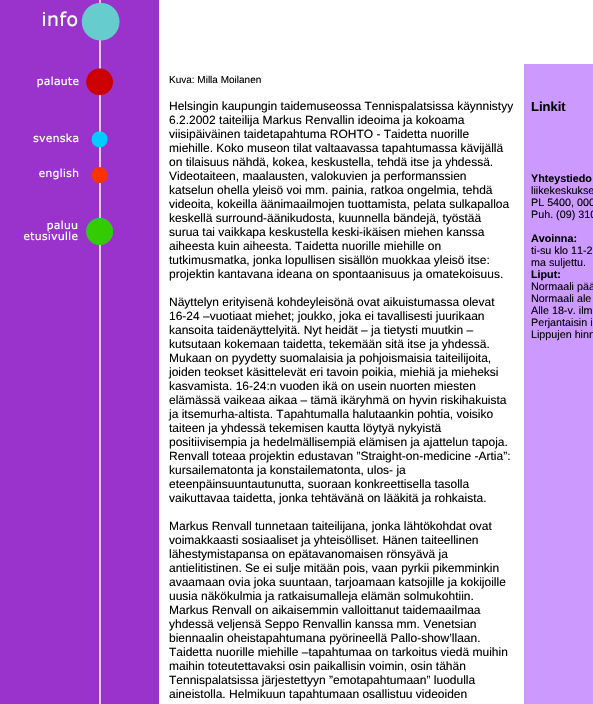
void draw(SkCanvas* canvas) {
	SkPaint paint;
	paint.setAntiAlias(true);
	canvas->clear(0xffffffff);
	canvas->drawImageRect(SkImages::DeferredFromEncodedData(SkData::MakeFromFileName("img1.png")), SkRect::MakeXYWH(0, 0, 159, 704), SkSamplingOptions());
	canvas->drawImageRect(SkImages::DeferredFromEncodedData(SkData::MakeFromFileName("img2.png")), SkRect::MakeXYWH(43, 2, 77, 39), SkSamplingOptions());
	canvas->drawImageRect(SkImages::DeferredFromEncodedData(SkData::MakeFromFileName("img3.png")), SkRect::MakeXYWH(37, 68, 76, 28), SkSamplingOptions());
	canvas->drawImageRect(SkImages::DeferredFromEncodedData(SkData::MakeFromFileName("img4.png")), SkRect::MakeXYWH(33, 131, 75, 17), SkSamplingOptions());
	canvas->drawImageRect(SkImages::DeferredFromEncodedData(SkData::MakeFromFileName("img5.png")), SkRect::MakeXYWH(39, 167, 69, 16), SkSamplingOptions());
	canvas->drawImageRect(SkImages::DeferredFromEncodedData(SkData::MakeFromFileName("img6.png")), SkRect::MakeXYWH(23, 218, 90, 27), SkSamplingOptions());
	SkFont f1(fontMgr->matchFamilyStyle("Liberation Sans", SkFontStyle::Normal()), 10);
	f1.setSubpixel(true);
	paint.setColor(0xff000000);
	canvas->drawString("Kuva: Milla Moilanen", 169, 83, f1, paint);
	SkFont f2(fontMgr->matchFamilyStyle("Liberation Sans", SkFontStyle::Normal()), 12);
	f2.setSubpixel(true);
	canvas->drawString("Helsingin kaupungin taidemuseossa Tennispalatsissa käynnistyy", 169, 110, f2, paint);
	canvas->drawString("6.2.2002 taiteilija Markus Renvallin ideoima ja kokoama", 169, 124, f2, paint);
	canvas->drawString("viisipäiväinen taidetapahtuma ROHTO - Taidetta nuorille", 169, 138, f2, paint);
	canvas->drawString("miehille. Koko museon tilat valtaavassa tapahtumassa kävijällä", 169, 152, f2, paint);
	canvas->drawString("on tilaisuus nähdä, kokea, keskustella, tehdä itse ja yhdessä.", 169, 166, f2, paint);
	canvas->drawString("Videotaiteen, maalausten, valokuvien ja performanssien", 169, 180, f2, paint);
	canvas->drawString("katselun ohella yleisö voi mm. painia, ratkoa ongelmia, tehdä", 169, 194, f2, paint);
	canvas->drawString("videoita, kokeilla äänimaailmojen tuottamista, pelata sulkapalloa", 169, 208, f2, paint);
	canvas->drawString("keskellä surround-äänikudosta, kuunnella bändejä, työstää", 169, 222, f2, paint);
	canvas->drawString("surua tai vaikkapa keskustella keski-ikäisen miehen kanssa", 169, 236, f2, paint);
	canvas->drawString("aiheesta kuin aiheesta. Taidetta nuorille miehille on", 169, 250, f2, paint);
	canvas->drawString("tutkimusmatka, jonka lopullisen sisällön muokkaa yleisö itse:", 169, 264, f2, paint);
	canvas->drawString("projektin kantavana ideana on spontaanisuus ja omatekoisuus.", 169, 278, f2, paint);
	canvas->drawString("Näyttelyn erityisenä kohdeyleisönä ovat aikuistumassa olevat", 169, 306, f2, paint);
	canvas->drawString("16-24 –vuotiaat miehet; joukko, joka ei tavallisesti juurikaan", 169, 320, f2, paint);
	canvas->drawString("kansoita taidenäyttelyitä. Nyt heidät – ja tietysti muutkin –", 169, 334, f2, paint);
	canvas->drawString("kutsutaan kokemaan taidetta, tekemään sitä itse ja yhdessä.", 169, 348, f2, paint);
	canvas->drawString("Mukaan on pyydetty suomalaisia ja pohjoismaisia taiteilijoita,", 169, 362, f2, paint);
	canvas->drawString("joiden teokset käsittelevät eri tavoin poikia, miehiä ja mieheksi", 169, 376, f2, paint);
	canvas->drawString("kasvamista. 16-24:n vuoden ikä on usein nuorten miesten", 169, 390, f2, paint);
	canvas->drawString("elämässä vaikeaa aikaa – tämä ikäryhmä on hyvin riskihakuista", 169, 404, f2, paint);
	canvas->drawString("ja itsemurha-altista. Tapahtumalla halutaankin pohtia, voisiko", 169, 418, f2, paint);
	canvas->drawString("taiteen ja yhdessä tekemisen kautta löytyä nykyistä", 169, 432, f2, paint);
	canvas->drawString("positiivisempia ja hedelmällisempiä elämisen ja ajattelun tapoja.", 169, 446, f2, paint);
	canvas->drawString("Renvall toteaa projektin edustavan ”Straight-on-medicine -Artia”:", 169, 460, f2, paint);
	canvas->drawString("kursailematonta ja konstailematonta, ulos- ja", 169, 474, f2, paint);
	canvas->drawString("eteenpäinsuuntautunutta, suoraan konkreettisella tasolla", 169, 488, f2, paint);
	canvas->drawString("vaikuttavaa taidetta, jonka tehtävänä on lääkitä ja rohkaista.", 169, 502, f2, paint);
	canvas->drawString("Markus Renvall tunnetaan taiteilijana, jonka lähtökohdat ovat", 169, 530, f2, paint);
	canvas->drawString("voimakkaasti sosiaaliset ja yhteisölliset. Hänen taiteellinen", 169, 544, f2, paint);
	canvas->drawString("lähestymistapansa on epätavanomaisen rönsyävä ja", 169, 558, f2, paint);
	canvas->drawString("antielitistinen. Se ei sulje mitään pois, vaan pyrkii pikemminkin", 169, 572, f2, paint);
	canvas->drawString("avaamaan ovia joka suuntaan, tarjoamaan katsojille ja kokijoille", 169, 586, f2, paint);
	canvas->drawString("uusia näkökulmia ja ratkaisumalleja elämän solmukohtiin.", 169, 600, f2, paint);
	canvas->drawString("Markus Renvall on aikaisemmin valloittanut taidemaailmaa", 169, 614, f2, paint);
	canvas->drawString("yhdessä veljensä Seppo Renvallin kanssa mm. Venetsian", 169, 628, f2, paint);
	canvas->drawString("biennaalin oheistapahtumana pyörineellä Pallo-show’llaan.", 169, 642, f2, paint);
	canvas->drawString("Taidetta nuorille miehille –tapahtumaa on tarkoitus viedä muihin", 169, 656, f2, paint);
	canvas->drawString("maihin toteutettavaksi osin paikallisin voimin, osin tähän", 169, 670, f2, paint);
	canvas->drawString("Tennispalatsissa järjestettyyn ”emotapahtumaan” luodulla", 169, 684, f2, paint);
	canvas->drawString("aineistolla. Helmikuun tapahtumaan osallistuu videoiden", 169, 698, f2, paint);
	paint.setColor(0xffcc99ff);
	canvas->drawRect(SkRect::MakeXYWH(524, 64, 69, 640), paint);
	SkFont f3(fontMgr->matchFamilyStyle("Liberation Sans", SkFontStyle::Bold()), 13);
	f3.setSubpixel(true);
	paint.setColor(0xff000000);
	canvas->drawString("Linkit", 531, 111, f3, paint);
	SkFont f4(fontMgr->matchFamilyStyle("Liberation Sans", SkFontStyle::Bold()), 10.75);
	f4.setSubpixel(true);
	canvas->drawString("Yhteystiedo", 531, 182, f4, paint);
	SkFont f5(fontMgr->matchFamilyStyle("Liberation Sans", SkFontStyle::Normal()), 10.75);
	f5.setSubpixel(true);
	canvas->drawString("liikekeskukse", 531, 194, f5, paint);
	canvas->drawString("PL 5400, 000", 531, 206, f5, paint);
	canvas->drawString("Puh. (09) 310", 531, 218, f5, paint);
	canvas->drawString("Avoinna:", 531, 242, f4, paint);
	canvas->drawString("ti-su klo 11-2", 531, 254, f5, paint);
	canvas->drawString("ma suljettu.", 531, 266, f5, paint);
	canvas->drawString("Liput:", 531, 278, f4, paint);
	canvas->drawString("Normaali pää", 531, 290, f5, paint);
	canvas->drawString("Normaali ale", 531, 302, f5, paint);
	canvas->drawString("Alle 18-v. ilm", 531, 314, f5, paint);
	canvas->drawString("Perjantaisin i", 531, 326, f5, paint);
	canvas->drawString("Lippujen hinn", 531, 338, f5, paint);
}
